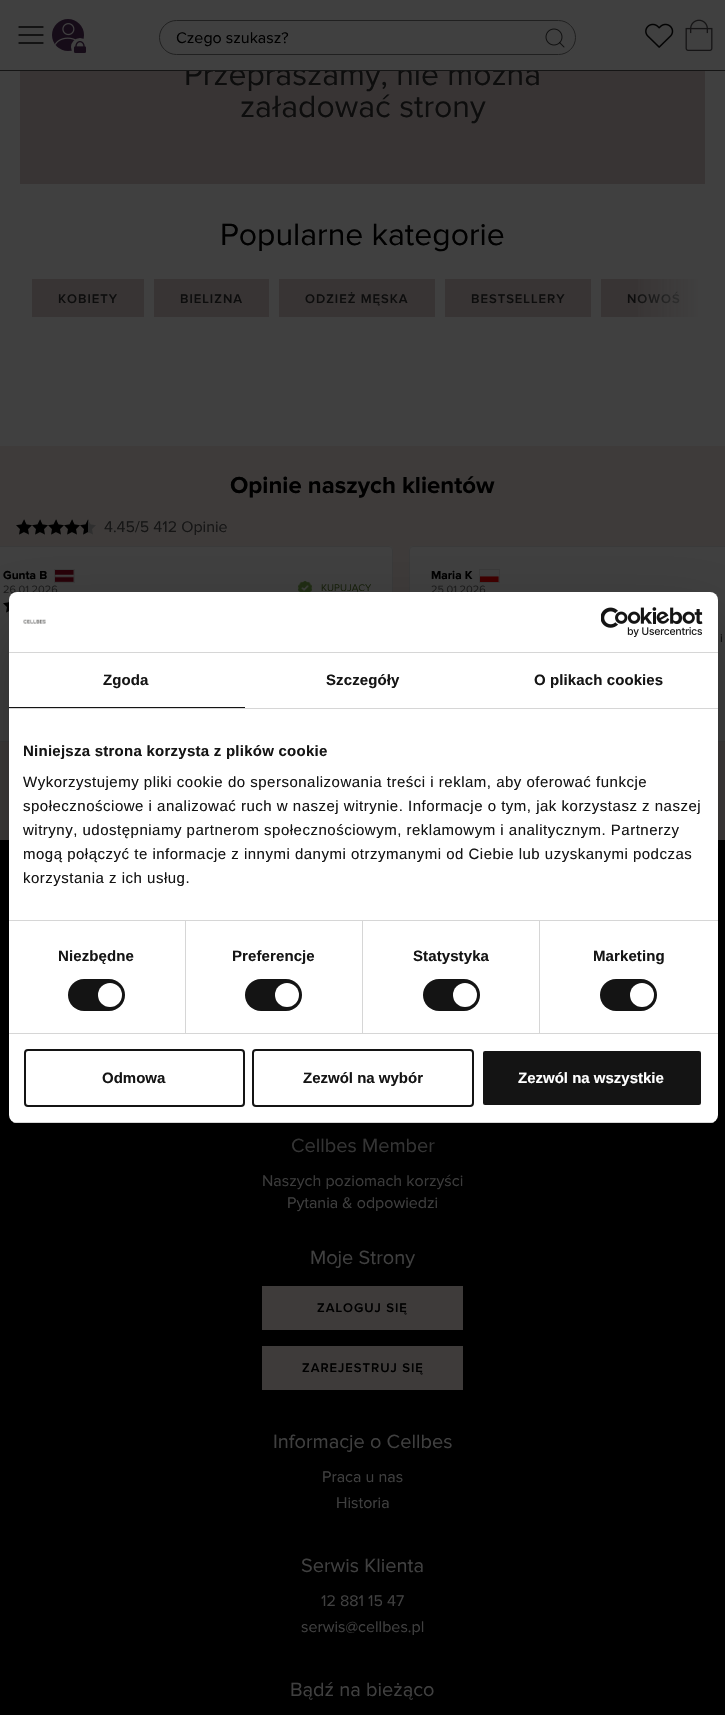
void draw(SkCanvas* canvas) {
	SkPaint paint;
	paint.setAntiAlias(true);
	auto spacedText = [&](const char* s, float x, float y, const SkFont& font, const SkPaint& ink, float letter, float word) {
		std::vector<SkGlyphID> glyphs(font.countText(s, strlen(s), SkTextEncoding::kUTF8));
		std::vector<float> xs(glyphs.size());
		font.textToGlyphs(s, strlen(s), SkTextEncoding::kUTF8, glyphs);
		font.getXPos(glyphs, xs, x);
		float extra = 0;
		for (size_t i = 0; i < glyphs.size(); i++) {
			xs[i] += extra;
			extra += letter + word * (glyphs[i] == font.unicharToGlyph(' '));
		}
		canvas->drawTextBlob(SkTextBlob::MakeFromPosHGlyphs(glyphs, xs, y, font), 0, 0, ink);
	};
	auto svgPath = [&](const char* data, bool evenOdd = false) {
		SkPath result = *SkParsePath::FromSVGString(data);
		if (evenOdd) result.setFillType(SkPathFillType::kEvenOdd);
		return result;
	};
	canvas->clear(0xff404040);
	paint.setColor(0xff383434);
	canvas->drawRect(SkRect::MakeXYWH(20, 71, 685, 113), paint);
	SkFont f1(fontMgr->matchFamilyStyle("Proxima Nova", SkFontStyle::Normal()), 32);
	f1.setSubpixel(true);
	paint.setColor(0xff0d0d0d);
	canvas->drawString("Przepraszamy, nie można", 184, 85, f1, paint);
	paint.setColor(0xff404040);
	canvas->drawRect(SkRect::MakeXYWH(186, 63, 350, 7), paint);
	paint.setColor(0xff151515);
	canvas->drawRect(SkRect::MakeXYWH(0, 70, 725, 1), paint);
	paint.setStroke(true);
	paint.setStrokeWidth(1.3);
	paint.setStrokeCap(SkPaint::kRound_Cap);
	paint.setStrokeJoin(SkPaint::kRound_Join);
	paint.setColor(0xff040404);
	canvas->drawPath(svgPath("M19 35H43M19 27H43M19 43H43"), paint);
	paint.setStroke(false);
	paint.setColor(0xff160c18);
	canvas->drawCircle(68, 35, 16, paint);
	canvas->drawImageRect(SkImages::DeferredFromEncodedData(SkData::MakeFromFileName("img1.png")), SkRect::MakeXYWH(55, 23, 21, 23), SkSamplingOptions());
	paint.setColor(0xff404040);
	canvas->drawCircle(80, 47, 9, paint);
	canvas->drawImageRect(SkImages::DeferredFromEncodedData(SkData::MakeFromFileName("img2.png")), SkRect::MakeXYWH(73, 41, 14, 12), SkSamplingOptions());
	paint.setStroke(true);
	paint.setStrokeWidth(1);
	paint.setStrokeCap(SkPaint::kButt_Cap);
	paint.setStrokeJoin(SkPaint::kMiter_Join);
	paint.setColor(0xff202020);
	canvas->drawRoundRect(SkRect::MakeXYWH(159.5, 20.5, 416, 34), 17, 17, paint);
	SkFont f2(fontMgr->matchFamilyStyle("Proxima Nova", SkFontStyle::Normal()), 16);
	f2.setSubpixel(true);
	paint.setStroke(false);
	paint.setColor(0xff000000);
	canvas->drawString("Czego szukasz?", 176, 43, f2, paint);
	canvas->drawImageRect(SkImages::DeferredFromEncodedData(SkData::MakeFromFileName("img3.png")), SkRect::MakeXYWH(545, 28, 20, 20), SkSamplingOptions());
	canvas->drawImageRect(SkImages::DeferredFromEncodedData(SkData::MakeFromFileName("img4.png")), SkRect::MakeXYWH(645, 23, 29, 25), SkSamplingOptions());
	canvas->drawImageRect(SkImages::DeferredFromEncodedData(SkData::MakeFromFileName("img5.png")), SkRect::MakeXYWH(685, 19, 28, 32), SkSamplingOptions());
	paint.setColor(0xff0d0d0d);
	canvas->drawString("załadować strony", 240, 117, f1, paint);
	paint.setColor(0xff000000);
	canvas->drawString("Popularne kategorie", 220, 245, f1, paint);
	paint.setColor(0xff383434);
	canvas->drawRect(SkRect::MakeXYWH(601, 279, 97, 38), paint);
	SkFont f3(fontMgr->matchFamilyStyle("Proxima Nova", SkFontStyle(600, SkFontStyle::kNormal_Width, SkFontStyle::kUpright_Slant)), 13);
	f3.setSubpixel(true);
	paint.setColor(0xff0d0d0d);
	spacedText("NOWOŚ", 627, 303, f3, paint, 1, 0);
	{
		const SkColor colors[] = {0xff404040, 0x00404040};
		const float stops[] = {0, 1};
		const SkPoint ends[] = {{706, 273}, {632, 273}};
		paint.setShader(SkGradientShader::MakeLinear(ends, colors, stops, 2, SkTileMode::kClamp));
		paint.setAlpha(255);
	}
	canvas->drawRect(SkRect::MakeXYWH(638, 279, 60, 38), paint);
	paint.setShader(nullptr);
	paint.setColor(0xff383434);
	canvas->drawRect(SkRect::MakeXYWH(32, 279, 112, 38), paint);
	paint.setColor(0xff0d0d0d);
	spacedText("KOBIETY", 58, 303, f3, paint, 1, 0);
	paint.setColor(0xff383434);
	canvas->drawRect(SkRect::MakeXYWH(154, 279, 115, 38), paint);
	paint.setColor(0xff0d0d0d);
	spacedText("BIELIZNA", 180, 303, f3, paint, 1, 0);
	paint.setColor(0xff383434);
	canvas->drawRect(SkRect::MakeXYWH(279, 279, 156, 38), paint);
	paint.setColor(0xff0d0d0d);
	spacedText("ODZIEŻ MĘSKA", 305, 303, f3, paint, 1, 0);
	paint.setColor(0xff383434);
	canvas->drawRect(SkRect::MakeXYWH(445, 279, 146, 38), paint);
	paint.setColor(0xff0d0d0d);
	spacedText("BESTSELLERY", 471, 303, f3, paint, 1, 0);
	paint.setColor(0xff3e3b3a);
	canvas->drawRect(SkRect::MakeXYWH(0, 446, 725, 394), paint);
	SkFont f4(fontMgr->matchFamilyStyle("Proxima Nova", SkFontStyle::Bold()), 24);
	f4.setSubpixel(true);
	paint.setColor(0xff000000);
	canvas->drawString("Opinie naszych klientów", 230, 493, f4, paint);
	canvas->drawImageRect(SkImages::DeferredFromEncodedData(SkData::MakeFromFileName("img6.png")), SkRect::MakeXYWH(16, 519, 16, 16), SkSamplingOptions());
	canvas->drawImageRect(SkImages::DeferredFromEncodedData(SkData::MakeFromFileName("img6.png")), SkRect::MakeXYWH(32, 519, 16, 16), SkSamplingOptions());
	canvas->drawImageRect(SkImages::DeferredFromEncodedData(SkData::MakeFromFileName("img6.png")), SkRect::MakeXYWH(48, 519, 16, 16), SkSamplingOptions());
	canvas->drawImageRect(SkImages::DeferredFromEncodedData(SkData::MakeFromFileName("img6.png")), SkRect::MakeXYWH(64, 519, 16, 16), SkSamplingOptions());
	canvas->drawImageRect(SkImages::DeferredFromEncodedData(SkData::MakeFromFileName("img7.png")), SkRect::MakeXYWH(80, 519, 16, 16), SkSamplingOptions());
	paint.setColor(0xff151515);
	canvas->drawString("4.45/5 412 Opinie", 104, 532, f2, paint);
	paint.setColor(0xff404040);
	canvas->drawPath(svgPath("M0 546H389C391 546 393 548 393 550V738C393 740 391 742 389 742H0Z"), paint);
	paint.setStroke(true);
	paint.setColor(0xff3a3a3a);
	canvas->drawRoundRect(SkRect::MakeXYWH(-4.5, 546.5, 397, 195), 3.5, 3.5, paint);
	SkFont f5(fontMgr->matchFamilyStyle("Proxima Nova", SkFontStyle::Bold()), 12);
	f5.setSubpixel(true);
	paint.setStroke(false);
	paint.setColor(0xff000000);
	canvas->drawString("Gunta B", 3, 579, f5, paint);
	canvas->drawImageRect(SkImages::DeferredFromEncodedData(SkData::MakeFromFileName("img8.png")), SkRect::MakeXYWH(55, 570, 19, 12), SkSamplingOptions());
	paint.setStroke(true);
	paint.setColor(0xff3a3a3a);
	canvas->drawRect(SkRect::MakeXYWH(54.5, 569.5, 20, 13), paint);
	SkFont f6(fontMgr->matchFamilyStyle("Proxima Nova", SkFontStyle::Normal()), 11);
	f6.setSubpixel(true);
	paint.setStroke(false);
	paint.setColor(0xff1c1c1c);
	canvas->drawString("26.01.2026", 3, 593, f6, paint);
	canvas->drawImageRect(SkImages::DeferredFromEncodedData(SkData::MakeFromFileName("img9.png")), SkRect::MakeXYWH(3, 599, 7, 14), SkSamplingOptions());
	canvas->drawImageRect(SkImages::DeferredFromEncodedData(SkData::MakeFromFileName("img10.png")), SkRect::MakeXYWH(297, 580, 16, 12), SkSamplingOptions());
	SkFont f7(fontMgr->matchFamilyStyle("Proxima Nova", SkFontStyle::Normal()), 10);
	f7.setSubpixel(true);
	paint.setColor(0xff17200c);
	canvas->drawString("KUPUJĄCY", 321, 591, f7, paint);
	paint.setColor(0xff404040);
	canvas->drawPath(svgPath("M413 546H725V742H413C411 742 409 740 409 738V550C409 548 411 546 413 546Z"), paint);
	paint.setStroke(true);
	paint.setColor(0xff3a3a3a);
	canvas->drawRoundRect(SkRect::MakeXYWH(409.5, 546.5, 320, 195), 3.5, 3.5, paint);
	paint.setStroke(false);
	paint.setColor(0xff000000);
	canvas->drawString("Maria K", 431, 579, f5, paint);
	canvas->drawImageRect(SkImages::DeferredFromEncodedData(SkData::MakeFromFileName("img11.png")), SkRect::MakeXYWH(480, 570, 19, 12), SkSamplingOptions());
	paint.setStroke(true);
	paint.setColor(0xff3a3a3a);
	canvas->drawRect(SkRect::MakeXYWH(479.5, 569.5, 20, 13), paint);
	paint.setStroke(false);
	paint.setColor(0xff1c1c1c);
	canvas->drawString("25.01.2026", 431, 593, f6, paint);
	SkFont f8(fontMgr->matchFamilyStyle("Proxima Nova", SkFontStyle::Normal()), 12);
	f8.setSubpixel(true);
	paint.setColor(0xff0d0d0d);
	canvas->drawString("i", 720, 642, f8, paint);
	paint.setColor(0xff000000);
	canvas->drawRect(SkRect::MakeXYWH(0, 840, 725, 875), paint);
	SkFont f9(fontMgr->matchFamilyStyle("Proxima Nova", SkFontStyle::Normal()), 20);
	f9.setSubpixel(true);
	paint.setColor(0xff404040);
	canvas->drawString("Cellbes Member", 291, 1152, f9, paint);
	canvas->drawString("Naszych poziomach korzyści", 262, 1186, f2, paint);
	canvas->drawString("Pytania & odpowiedzi", 287, 1208, f2, paint);
	canvas->drawString("Moje Strony", 310, 1264, f9, paint);
	paint.setColor(0xff3e3b3a);
	canvas->drawRect(SkRect::MakeXYWH(262, 1286, 201, 44), paint);
	paint.setColor(0xff000000);
	spacedText("ZALOGUJ SIĘ", 317, 1312, f3, paint, 1, 0);
	paint.setColor(0xff3e3b3a);
	canvas->drawRect(SkRect::MakeXYWH(262, 1346, 201, 44), paint);
	paint.setColor(0xff000000);
	spacedText("ZAREJESTRUJ SIĘ", 302, 1372, f3, paint, 1, 0);
	paint.setColor(0xff404040);
	canvas->drawString("Informacje o Cellbes", 273, 1448, f9, paint);
	canvas->drawString("Praca u nas", 322, 1482, f2, paint);
	canvas->drawString("Historia", 336, 1508, f2, paint);
	canvas->drawString("Serwis Klienta", 301, 1572, f9, paint);
	canvas->drawString("12 881 15 47", 321, 1606, f2, paint);
	canvas->drawString("serwis@cellbes.pl", 301, 1632, f2, paint);
	canvas->drawString("Bądź na bieżąco", 290, 1696, f9, paint);
	paint.setColor(0x4d000000);
	paint.setMaskFilter(SkMaskFilter::MakeBlur(kNormal_SkBlurStyle, 34));
	canvas->drawRoundRect(SkRect::MakeXYWH(9, 624, 709, 531), 8, 8, paint);
	paint.setMaskFilter(nullptr);
	paint.setColor(0xffffffff);
	canvas->drawRoundRect(SkRect::MakeXYWH(9, 592, 709, 531), 8, 8, paint);
	paint.setColor(0xffd6d6d6);
	canvas->drawRect(SkRect::MakeXYWH(9, 652, 709, 1), paint);
	canvas->drawImageRect(SkImages::DeferredFromEncodedData(SkData::MakeFromFileName("img12.png")), SkRect::MakeXYWH(23, 619, 23, 5), SkSamplingOptions());
	canvas->drawImageRect(SkImages::DeferredFromEncodedData(SkData::MakeFromFileName("img13.png")), SkRect::MakeXYWH(601, 607, 102, 30), SkSamplingOptions());
	canvas->drawRect(SkRect::MakeXYWH(9, 708, 709, 1), paint);
	paint.setColor(0xff141414);
	canvas->drawRect(SkRect::MakeXYWH(9, 707, 236, 1), paint);
	SkFont f10(fontMgr->matchFamilyStyle("Liberation Sans", SkFontStyle::Bold()), 15);
	f10.setSubpixel(true);
	paint.setColor(0xff151515);
	spacedText("Zgoda", 103, 685, f10, paint, 0.1, 0);
	spacedText("Szczegóły", 326, 685, f10, paint, 0.1, 0);
	spacedText("O plikach cookies", 534, 685, f10, paint, 0.1, 0);
	paint.setColor(0xffd6d6d6);
	canvas->drawRect(SkRect::MakeXYWH(9, 920, 709, 1), paint);
	paint.setColor(0xff151515);
	spacedText("Niniejsza strona korzysta z plików cookie", 23, 756, f10, paint, 0.25, 0);
	SkFont f11(fontMgr->matchFamilyStyle("Liberation Sans", SkFontStyle::Normal()), 15);
	f11.setSubpixel(true);
	spacedText("Wykorzystujemy pliki cookie do spersonalizowania treści i reklam, aby oferować funkcje", 23, 787, f11, paint, 0.5, 0);
	spacedText("społecznościowe i analizować ruch w naszej witrynie. Informacje o tym, jak korzystasz z naszej", 23, 811, f11, paint, 0.5, 0);
	spacedText("witryny, udostępniamy partnerom społecznościowym, reklamowym i analitycznym. Partnerzy", 23, 835, f11, paint, 0.5, 0);
	spacedText("mogą połączyć te informacje z innymi danymi otrzymanymi od Ciebie lub uzyskanymi podczas", 23, 859, f11, paint, 0.5, 0);
	spacedText("korzystania z ich usług.", 23, 883, f11, paint, 0.5, 0);
	paint.setColor(0xffd6d6d6);
	canvas->drawRect(SkRect::MakeXYWH(9, 1033, 709, 1), paint);
	canvas->drawRect(SkRect::MakeXYWH(185, 921, 1, 112), paint);
	paint.setColor(0xff151515);
	spacedText("Niezbędne", 58, 961, f10, paint, 0.1, 0);
	paint.setColor(0xff141414);
	canvas->drawRoundRect(SkRect::MakeXYWH(68, 979, 57, 32), 16, 16, paint);
	paint.setColor(0xffffffff);
	canvas->drawCircle(110, 995, 12, paint);
	paint.setColor(0xffd6d6d6);
	canvas->drawRect(SkRect::MakeXYWH(362, 921, 1, 112), paint);
	paint.setColor(0xff151515);
	spacedText("Preferencje", 232, 961, f10, paint, 0.1, 0);
	paint.setColor(0xff141414);
	canvas->drawRoundRect(SkRect::MakeXYWH(245, 979, 57, 32), 16, 16, paint);
	paint.setColor(0xffffffff);
	canvas->drawCircle(287, 995, 12, paint);
	paint.setColor(0xffd6d6d6);
	canvas->drawRect(SkRect::MakeXYWH(539, 921, 1, 112), paint);
	paint.setColor(0xff151515);
	spacedText("Statystyka", 413, 961, f10, paint, 0.1, 0);
	paint.setColor(0xff141414);
	canvas->drawRoundRect(SkRect::MakeXYWH(423, 979, 57, 32), 16, 16, paint);
	paint.setColor(0xffffffff);
	canvas->drawCircle(465, 995, 12, paint);
	paint.setColor(0xff151515);
	spacedText("Marketing", 593, 961, f10, paint, 0.1, 0);
	paint.setColor(0xff141414);
	canvas->drawRoundRect(SkRect::MakeXYWH(600, 979, 57, 32), 16, 16, paint);
	paint.setColor(0xffffffff);
	canvas->drawCircle(642, 995, 12, paint);
	canvas->save();
	canvas->clipPath(svgPath("M17 592H710C714.5 592 718 595.5 718 600V1115C718 1119.5 714.5 1123 710 1123H17C12.5 1123 9 1119.5 9 1115V600C9 595.5 12.5 592 17 592Z"), true);
	paint.setColor(0xffd6d6d6);
	canvas->drawRect(SkRect::MakeXYWH(9, 1122, 709, 1), paint);
	canvas->restore();
	paint.setStroke(true);
	paint.setStrokeWidth(2);
	paint.setColor(0xff141414);
	canvas->drawRoundRect(SkRect::MakeXYWH(25, 1050, 219, 56), 3, 3, paint);
	paint.setStroke(false);
	paint.setColor(0xff151515);
	canvas->drawString("Odmowa", 102, 1083, f10, paint);
	paint.setStroke(true);
	paint.setColor(0xff141414);
	canvas->drawRoundRect(SkRect::MakeXYWH(253, 1050, 220, 56), 3, 3, paint);
	paint.setStroke(false);
	paint.setColor(0xff151515);
	canvas->drawString("Zezwól na wybór", 303, 1083, f10, paint);
	paint.setColor(0xff141414);
	canvas->drawRoundRect(SkRect::MakeXYWH(482, 1050, 220, 56), 3, 3, paint);
	paint.setStroke(true);
	paint.setColor(0xffffffff);
	canvas->drawRoundRect(SkRect::MakeXYWH(482, 1050, 220, 56), 3, 3, paint);
	paint.setStroke(false);
	canvas->drawString("Zezwól na wszystkie", 518, 1083, f10, paint);
}
